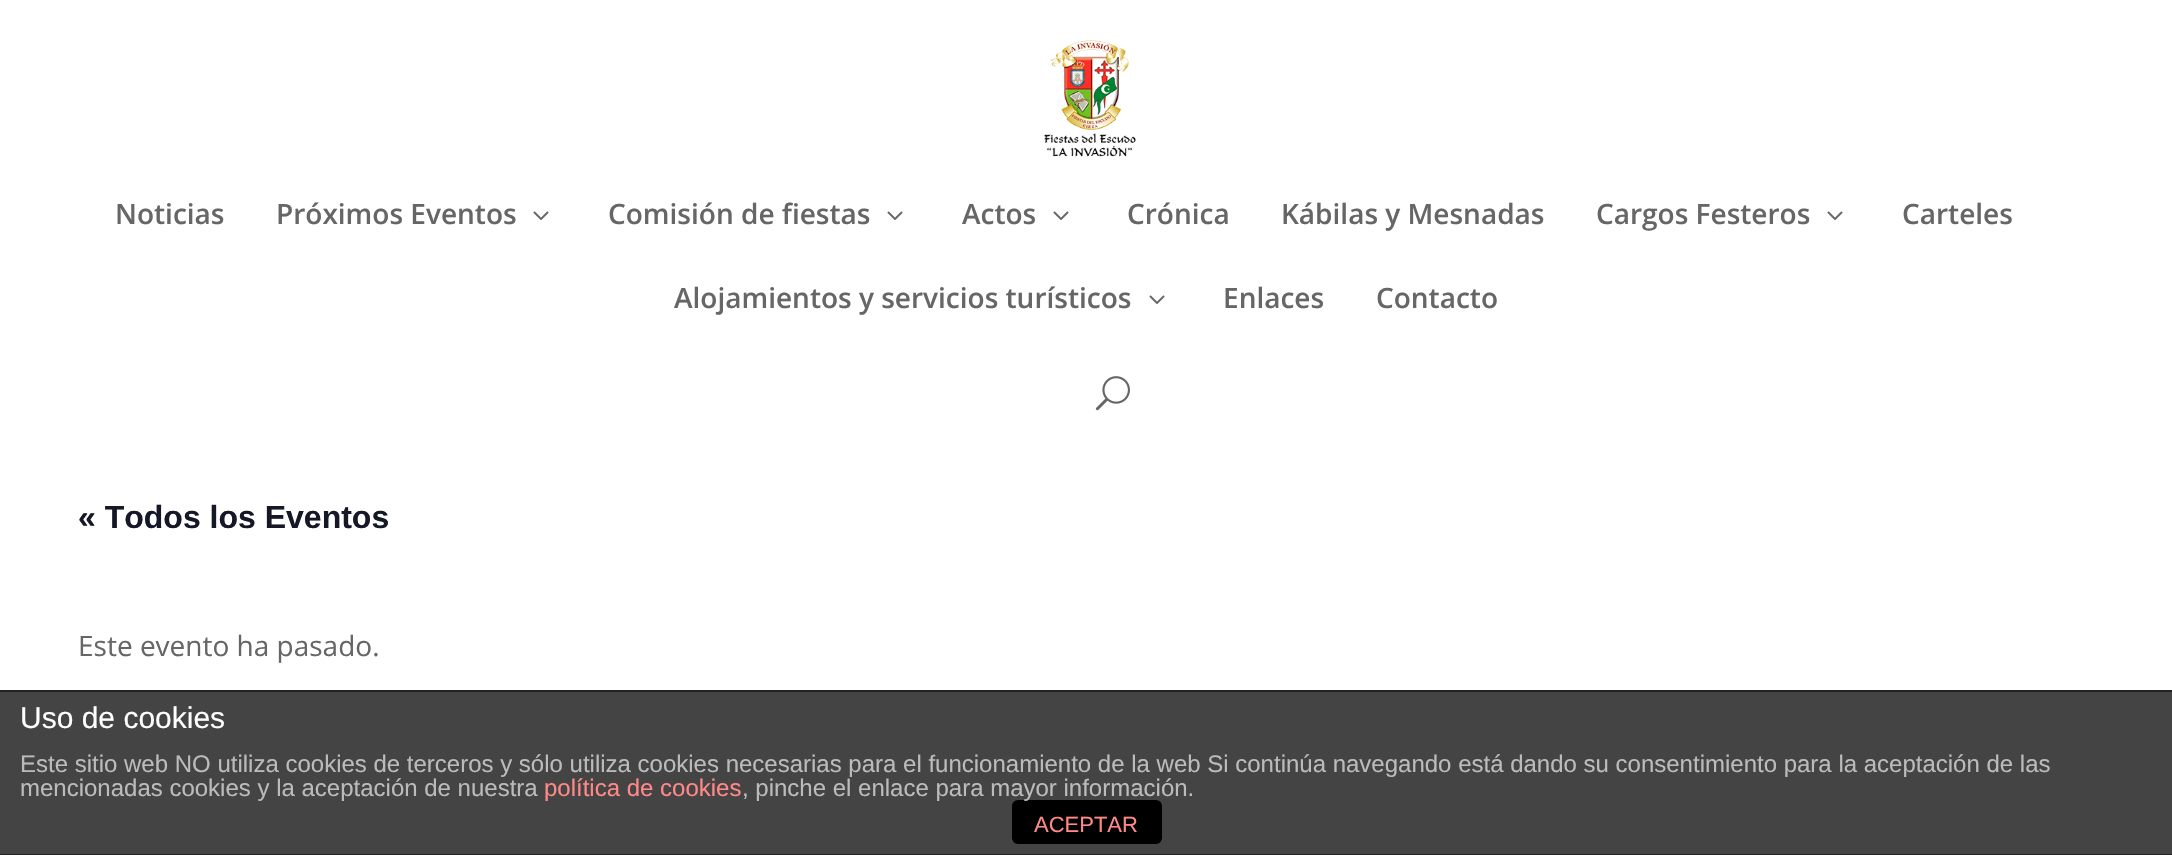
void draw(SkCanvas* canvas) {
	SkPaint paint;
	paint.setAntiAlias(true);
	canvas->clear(0xffffffff);
	canvas->drawImageRect(SkImages::DeferredFromEncodedData(SkData::MakeFromFileName("img1.png")), SkRect::MakeXYWH(1044, 40, 92, 117), SkSamplingOptions());
	SkFont f1(fontMgr->matchFamilyStyle("Open Sans", SkFontStyle(600, SkFontStyle::kNormal_Width, SkFontStyle::kUpright_Slant)), 28);
	f1.setSubpixel(true);
	paint.setColor(0xff666666);
	canvas->drawString("Noticias", 115, 224, f1, paint);
	canvas->drawString("Próximos Eventos", 276, 224, f1, paint);
	canvas->drawImageRect(SkImages::DeferredFromEncodedData(SkData::MakeFromFileName("img2.png")), SkRect::MakeXYWH(533, 211, 16, 9), SkSamplingOptions());
	canvas->drawString("Comisión de fiestas", 608, 224, f1, paint);
	canvas->drawImageRect(SkImages::DeferredFromEncodedData(SkData::MakeFromFileName("img2.png")), SkRect::MakeXYWH(887, 211, 16, 9), SkSamplingOptions());
	canvas->drawString("Actos", 962, 224, f1, paint);
	canvas->drawImageRect(SkImages::DeferredFromEncodedData(SkData::MakeFromFileName("img2.png")), SkRect::MakeXYWH(1053, 211, 16, 9), SkSamplingOptions());
	canvas->drawString("Crónica", 1127, 224, f1, paint);
	canvas->drawString("Kábilas y Mesnadas", 1281, 224, f1, paint);
	canvas->drawString("Cargos Festeros", 1596, 224, f1, paint);
	canvas->drawImageRect(SkImages::DeferredFromEncodedData(SkData::MakeFromFileName("img2.png")), SkRect::MakeXYWH(1827, 211, 16, 9), SkSamplingOptions());
	canvas->drawString("Carteles", 1902, 224, f1, paint);
	canvas->drawString("Alojamientos y servicios turísticos", 674, 308, f1, paint);
	canvas->drawImageRect(SkImages::DeferredFromEncodedData(SkData::MakeFromFileName("img2.png")), SkRect::MakeXYWH(1149, 295, 16, 9), SkSamplingOptions());
	canvas->drawString("Enlaces", 1223, 308, f1, paint);
	canvas->drawString("Contacto", 1376, 308, f1, paint);
	canvas->drawImageRect(SkImages::DeferredFromEncodedData(SkData::MakeFromFileName("img3.png")), SkRect::MakeXYWH(1095, 376, 35, 35), SkSamplingOptions());
	SkFont f2(fontMgr->matchFamilyStyle("Liberation Sans", SkFontStyle::Bold()), 32);
	f2.setSubpixel(true);
	paint.setColor(0xff141827);
	canvas->drawString("« Todos los Eventos", 78, 528, f2, paint);
	SkFont f3(fontMgr->matchFamilyStyle("Open Sans", SkFontStyle::Normal()), 28);
	f3.setSubpixel(true);
	paint.setColor(0xff666666);
	canvas->drawString("Este evento ha pasado.", 78, 656, f3, paint);
	paint.setColor(0xff444444);
	canvas->drawRect(SkRect::MakeXYWH(0, 692, 2172, 162), paint);
	paint.setColor(0xff222222);
	canvas->drawRect(SkRect::MakeXYWH(0, 690, 2172, 2), paint);
	canvas->drawRect(SkRect::MakeXYWH(0, 854, 2172, 1), paint);
	SkFont f4(fontMgr->matchFamilyStyle("Liberation Sans", SkFontStyle::Normal()), 30);
	f4.setSubpixel(true);
	paint.setColor(0xffffffff);
	canvas->drawString("Uso de cookies", 20, 728, f4, paint);
	SkFont f5(fontMgr->matchFamilyStyle("Liberation Sans", SkFontStyle::Normal()), 24);
	f5.setSubpixel(true);
	paint.setColor(0xffbbbbbb);
	canvas->drawString("Este sitio web NO utiliza cookies de terceros y sólo utiliza cookies necesarias para el funcionamiento de la web Si continúa navegando está dando su consentimiento para la aceptación de las", 20, 772, f5, paint);
	canvas->drawString("mencionadas cookies y la aceptación de nuestra", 20, 796, f5, paint);
	paint.setColor(0xffff8888);
	canvas->drawString("política de cookies", 544, 796, f5, paint);
	paint.setColor(0xff000000);
	canvas->drawRoundRect(SkRect::MakeXYWH(1012, 800, 150, 44), 6, 6, paint);
	paint.setColor(0xffbbbbbb);
	canvas->drawString(", pinche el enlace para mayor información.", 742, 796, f5, paint);
	SkFont f6(fontMgr->matchFamilyStyle("Liberation Sans", SkFontStyle::Normal()), 22);
	f6.setSubpixel(true);
	paint.setColor(0xffff8888);
	canvas->drawString("ACEPTAR", 1034, 832, f6, paint);
}
